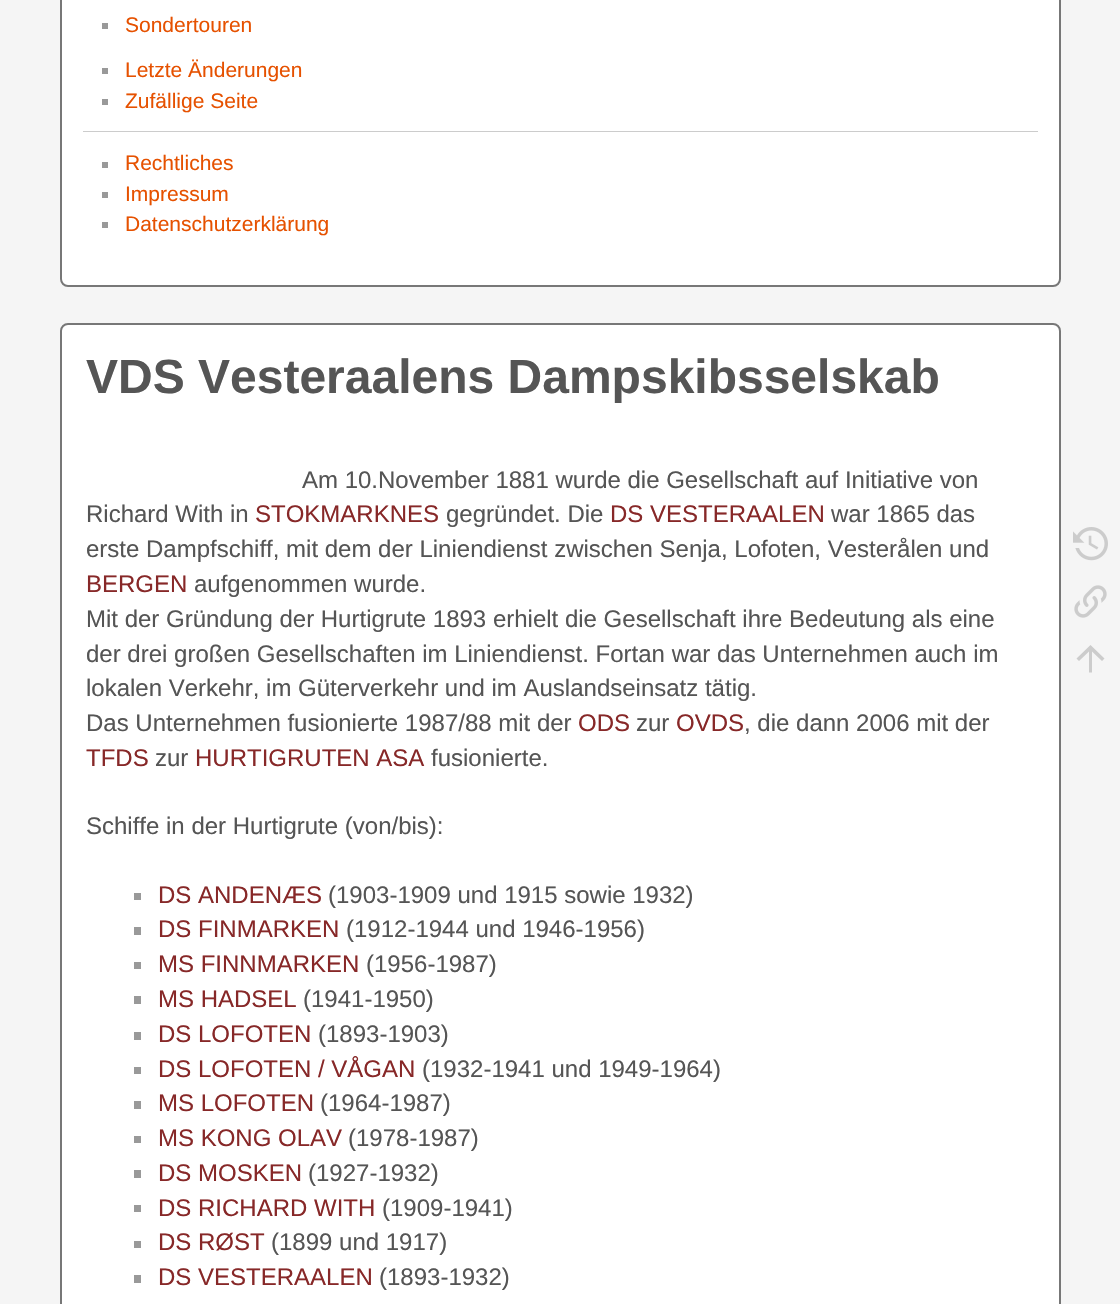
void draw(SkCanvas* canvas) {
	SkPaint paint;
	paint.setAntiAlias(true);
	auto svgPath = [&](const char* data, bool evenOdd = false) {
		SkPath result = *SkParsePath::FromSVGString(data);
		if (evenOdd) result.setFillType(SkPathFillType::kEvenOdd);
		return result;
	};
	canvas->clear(0xfff5f5f5);
	paint.setColor(0xffffffff);
	canvas->drawRoundRect(SkRect::MakeXYWH(61, -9, 999, 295), 7, 7, paint);
	paint.setStroke(true);
	paint.setStrokeWidth(2);
	paint.setColor(0xff777777);
	canvas->drawRoundRect(SkRect::MakeXYWH(61, -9, 999, 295), 7, 7, paint);
	paint.setStroke(false);
	paint.setColor(0xff999999);
	canvas->drawRect(SkRect::MakeXYWH(102, 23, 6, 6), paint);
	SkFont f1(fontMgr->matchFamilyStyle("Liberation Sans", SkFontStyle::Normal()), 21);
	f1.setSubpixel(true);
	paint.setColor(0xffe65100);
	canvas->drawString("Sondertouren", 125, 32, f1, paint);
	paint.setColor(0xff999999);
	canvas->drawRect(SkRect::MakeXYWH(102, 68, 6, 6), paint);
	paint.setColor(0xffe65100);
	canvas->drawString("Letzte Änderungen", 125, 77, f1, paint);
	paint.setColor(0xff999999);
	canvas->drawRect(SkRect::MakeXYWH(102, 99, 6, 6), paint);
	paint.setColor(0xffe65100);
	canvas->drawString("Zufällige Seite", 125, 108, f1, paint);
	paint.setColor(0xffcccccc);
	canvas->drawRect(SkRect::MakeXYWH(83, 131, 955, 1), paint);
	paint.setColor(0xff999999);
	canvas->drawRect(SkRect::MakeXYWH(102, 162, 6, 6), paint);
	paint.setColor(0xffe65100);
	canvas->drawString("Rechtliches", 125, 170, f1, paint);
	paint.setColor(0xff999999);
	canvas->drawRect(SkRect::MakeXYWH(102, 192, 6, 6), paint);
	paint.setColor(0xffe65100);
	canvas->drawString("Impressum", 125, 201, f1, paint);
	paint.setColor(0xff999999);
	canvas->drawRect(SkRect::MakeXYWH(102, 222, 6, 6), paint);
	paint.setColor(0xffe65100);
	canvas->drawString("Datenschutzerklärung", 125, 231, f1, paint);
	paint.setColor(0xffffffff);
	canvas->drawRoundRect(SkRect::MakeXYWH(61, 324, 999, 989), 7, 7, paint);
	paint.setStroke(true);
	paint.setColor(0xff777777);
	canvas->drawRoundRect(SkRect::MakeXYWH(61, 324, 999, 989), 7, 7, paint);
	SkFont f2(fontMgr->matchFamilyStyle("Liberation Sans", SkFontStyle::Bold()), 48);
	f2.setSubpixel(true);
	paint.setStroke(false);
	paint.setColor(0xff555555);
	canvas->drawString("VDS Vesteraalens Dampskibsselskab", 86, 393, f2, paint);
	SkFont f3(fontMgr->matchFamilyStyle("Liberation Sans", SkFontStyle::Normal()), 24);
	f3.setSubpixel(true);
	canvas->drawString("Am 10.November 1881 wurde die Gesellschaft auf Initiative von", 302, 488, f3, paint);
	canvas->drawString("Richard With in", 86, 522, f3, paint);
	paint.setColor(0xff872828);
	canvas->drawString("STOKMARKNES", 255, 522, f3, paint);
	paint.setColor(0xff555555);
	canvas->drawString("gegründet. Die", 446, 522, f3, paint);
	paint.setColor(0xff872828);
	canvas->drawString("DS VESTERAALEN", 610, 522, f3, paint);
	paint.setColor(0xff555555);
	canvas->drawString("war 1865 das", 831, 522, f3, paint);
	canvas->drawString("erste Dampfschiff, mit dem der Liniendienst zwischen Senja, Lofoten, Vesterålen und", 86, 557, f3, paint);
	paint.setColor(0xff872828);
	canvas->drawString("BERGEN", 86, 592, f3, paint);
	paint.setColor(0xff555555);
	canvas->drawString("aufgenommen wurde.", 194, 592, f3, paint);
	canvas->drawString("Mit der Gründung der Hurtigrute 1893 erhielt die Gesellschaft ihre Bedeutung als eine", 86, 627, f3, paint);
	canvas->drawString("der drei großen Gesellschaften im Liniendienst. Fortan war das Unternehmen auch im", 86, 662, f3, paint);
	canvas->drawString("lokalen Verkehr, im Güterverkehr und im Auslandseinsatz tätig.", 86, 696, f3, paint);
	canvas->drawString("Das Unternehmen fusionierte 1987/88 mit der", 86, 731, f3, paint);
	paint.setColor(0xff872828);
	canvas->drawString("ODS", 578, 731, f3, paint);
	paint.setColor(0xff555555);
	canvas->drawString("zur", 636, 731, f3, paint);
	paint.setColor(0xff872828);
	canvas->drawString("OVDS", 676, 731, f3, paint);
	paint.setColor(0xff555555);
	canvas->drawString(", die dann 2006 mit der", 744, 731, f3, paint);
	paint.setColor(0xff872828);
	canvas->drawString("TFDS", 86, 766, f3, paint);
	paint.setColor(0xff555555);
	canvas->drawString("zur", 155, 766, f3, paint);
	paint.setColor(0xff872828);
	canvas->drawString("HURTIGRUTEN ASA", 195, 766, f3, paint);
	paint.setColor(0xff555555);
	canvas->drawString("fusionierte.", 431, 766, f3, paint);
	canvas->drawString("Schiffe in der Hurtigrute (von/bis):", 86, 834, f3, paint);
	paint.setColor(0xff999999);
	canvas->drawRect(SkRect::MakeXYWH(134, 893, 7, 7), paint);
	paint.setColor(0xff872828);
	canvas->drawString("DS ANDENÆS", 158, 903, f3, paint);
	paint.setColor(0xff555555);
	canvas->drawString("(1903-1909 und 1915 sowie 1932)", 328, 903, f3, paint);
	paint.setColor(0xff999999);
	canvas->drawRect(SkRect::MakeXYWH(134, 927, 7, 8), paint);
	paint.setColor(0xff872828);
	canvas->drawString("DS FINMARKEN", 158, 937, f3, paint);
	paint.setColor(0xff555555);
	canvas->drawString("(1912-1944 und 1946-1956)", 346, 937, f3, paint);
	paint.setColor(0xff999999);
	canvas->drawRect(SkRect::MakeXYWH(134, 962, 7, 7), paint);
	paint.setColor(0xff872828);
	canvas->drawString("MS FINNMARKEN", 158, 972, f3, paint);
	paint.setColor(0xff555555);
	canvas->drawString("(1956-1987)", 366, 972, f3, paint);
	paint.setColor(0xff999999);
	canvas->drawRect(SkRect::MakeXYWH(134, 996, 7, 8), paint);
	paint.setColor(0xff872828);
	canvas->drawString("MS HADSEL", 158, 1007, f3, paint);
	paint.setColor(0xff555555);
	canvas->drawString("(1941-1950)", 303, 1007, f3, paint);
	paint.setColor(0xff999999);
	canvas->drawRect(SkRect::MakeXYWH(134, 1032, 7, 8), paint);
	paint.setColor(0xff872828);
	canvas->drawString("DS LOFOTEN", 158, 1042, f3, paint);
	paint.setColor(0xff555555);
	canvas->drawString("(1893-1903)", 318, 1042, f3, paint);
	paint.setColor(0xff999999);
	canvas->drawRect(SkRect::MakeXYWH(134, 1067, 7, 7), paint);
	paint.setColor(0xff872828);
	canvas->drawString("DS LOFOTEN / VÅGAN", 158, 1077, f3, paint);
	paint.setColor(0xff555555);
	canvas->drawString("(1932-1941 und 1949-1964)", 422, 1077, f3, paint);
	paint.setColor(0xff999999);
	canvas->drawRect(SkRect::MakeXYWH(134, 1101, 7, 8), paint);
	paint.setColor(0xff872828);
	canvas->drawString("MS LOFOTEN", 158, 1111, f3, paint);
	paint.setColor(0xff555555);
	canvas->drawString("(1964-1987)", 320, 1111, f3, paint);
	paint.setColor(0xff999999);
	canvas->drawRect(SkRect::MakeXYWH(134, 1136, 7, 7), paint);
	paint.setColor(0xff872828);
	canvas->drawString("MS KONG OLAV", 158, 1146, f3, paint);
	paint.setColor(0xff555555);
	canvas->drawString("(1978-1987)", 348, 1146, f3, paint);
	paint.setColor(0xff999999);
	canvas->drawRect(SkRect::MakeXYWH(134, 1170, 7, 8), paint);
	paint.setColor(0xff872828);
	canvas->drawString("DS MOSKEN", 158, 1181, f3, paint);
	paint.setColor(0xff555555);
	canvas->drawString("(1927-1932)", 308, 1181, f3, paint);
	paint.setColor(0xff999999);
	canvas->drawRect(SkRect::MakeXYWH(134, 1205, 7, 7), paint);
	paint.setColor(0xff872828);
	canvas->drawString("DS RICHARD WITH", 158, 1216, f3, paint);
	paint.setColor(0xff555555);
	canvas->drawString("(1909-1941)", 382, 1216, f3, paint);
	paint.setColor(0xff999999);
	canvas->drawRect(SkRect::MakeXYWH(134, 1241, 7, 7), paint);
	paint.setColor(0xff872828);
	canvas->drawString("DS RØST", 158, 1250, f3, paint);
	paint.setColor(0xff555555);
	canvas->drawString("(1899 und 1917)", 271, 1250, f3, paint);
	paint.setColor(0xff999999);
	canvas->drawRect(SkRect::MakeXYWH(134, 1275, 7, 8), paint);
	paint.setColor(0xff872828);
	canvas->drawString("DS VESTERAALEN", 158, 1285, f3, paint);
	paint.setColor(0xff555555);
	canvas->drawString("(1893-1932)", 379, 1285, f3, paint);
	canvas->drawImageRect(SkImages::DeferredFromEncodedData(SkData::MakeFromFileName("img1.png")), SkRect::MakeXYWH(1073, 527, 35, 34), SkSamplingOptions());
	canvas->drawImageRect(SkImages::DeferredFromEncodedData(SkData::MakeFromFileName("img2.png")), SkRect::MakeXYWH(1074, 585, 33, 33), SkSamplingOptions());
	paint.setColor(0xffcccccc);
	canvas->drawPath(svgPath("M1092 672.5H1089V651.5L1079 661L1076.5 658.5L1090.5 645L1104.5 658.5L1102 661L1092 651.5Z"), paint);
}
